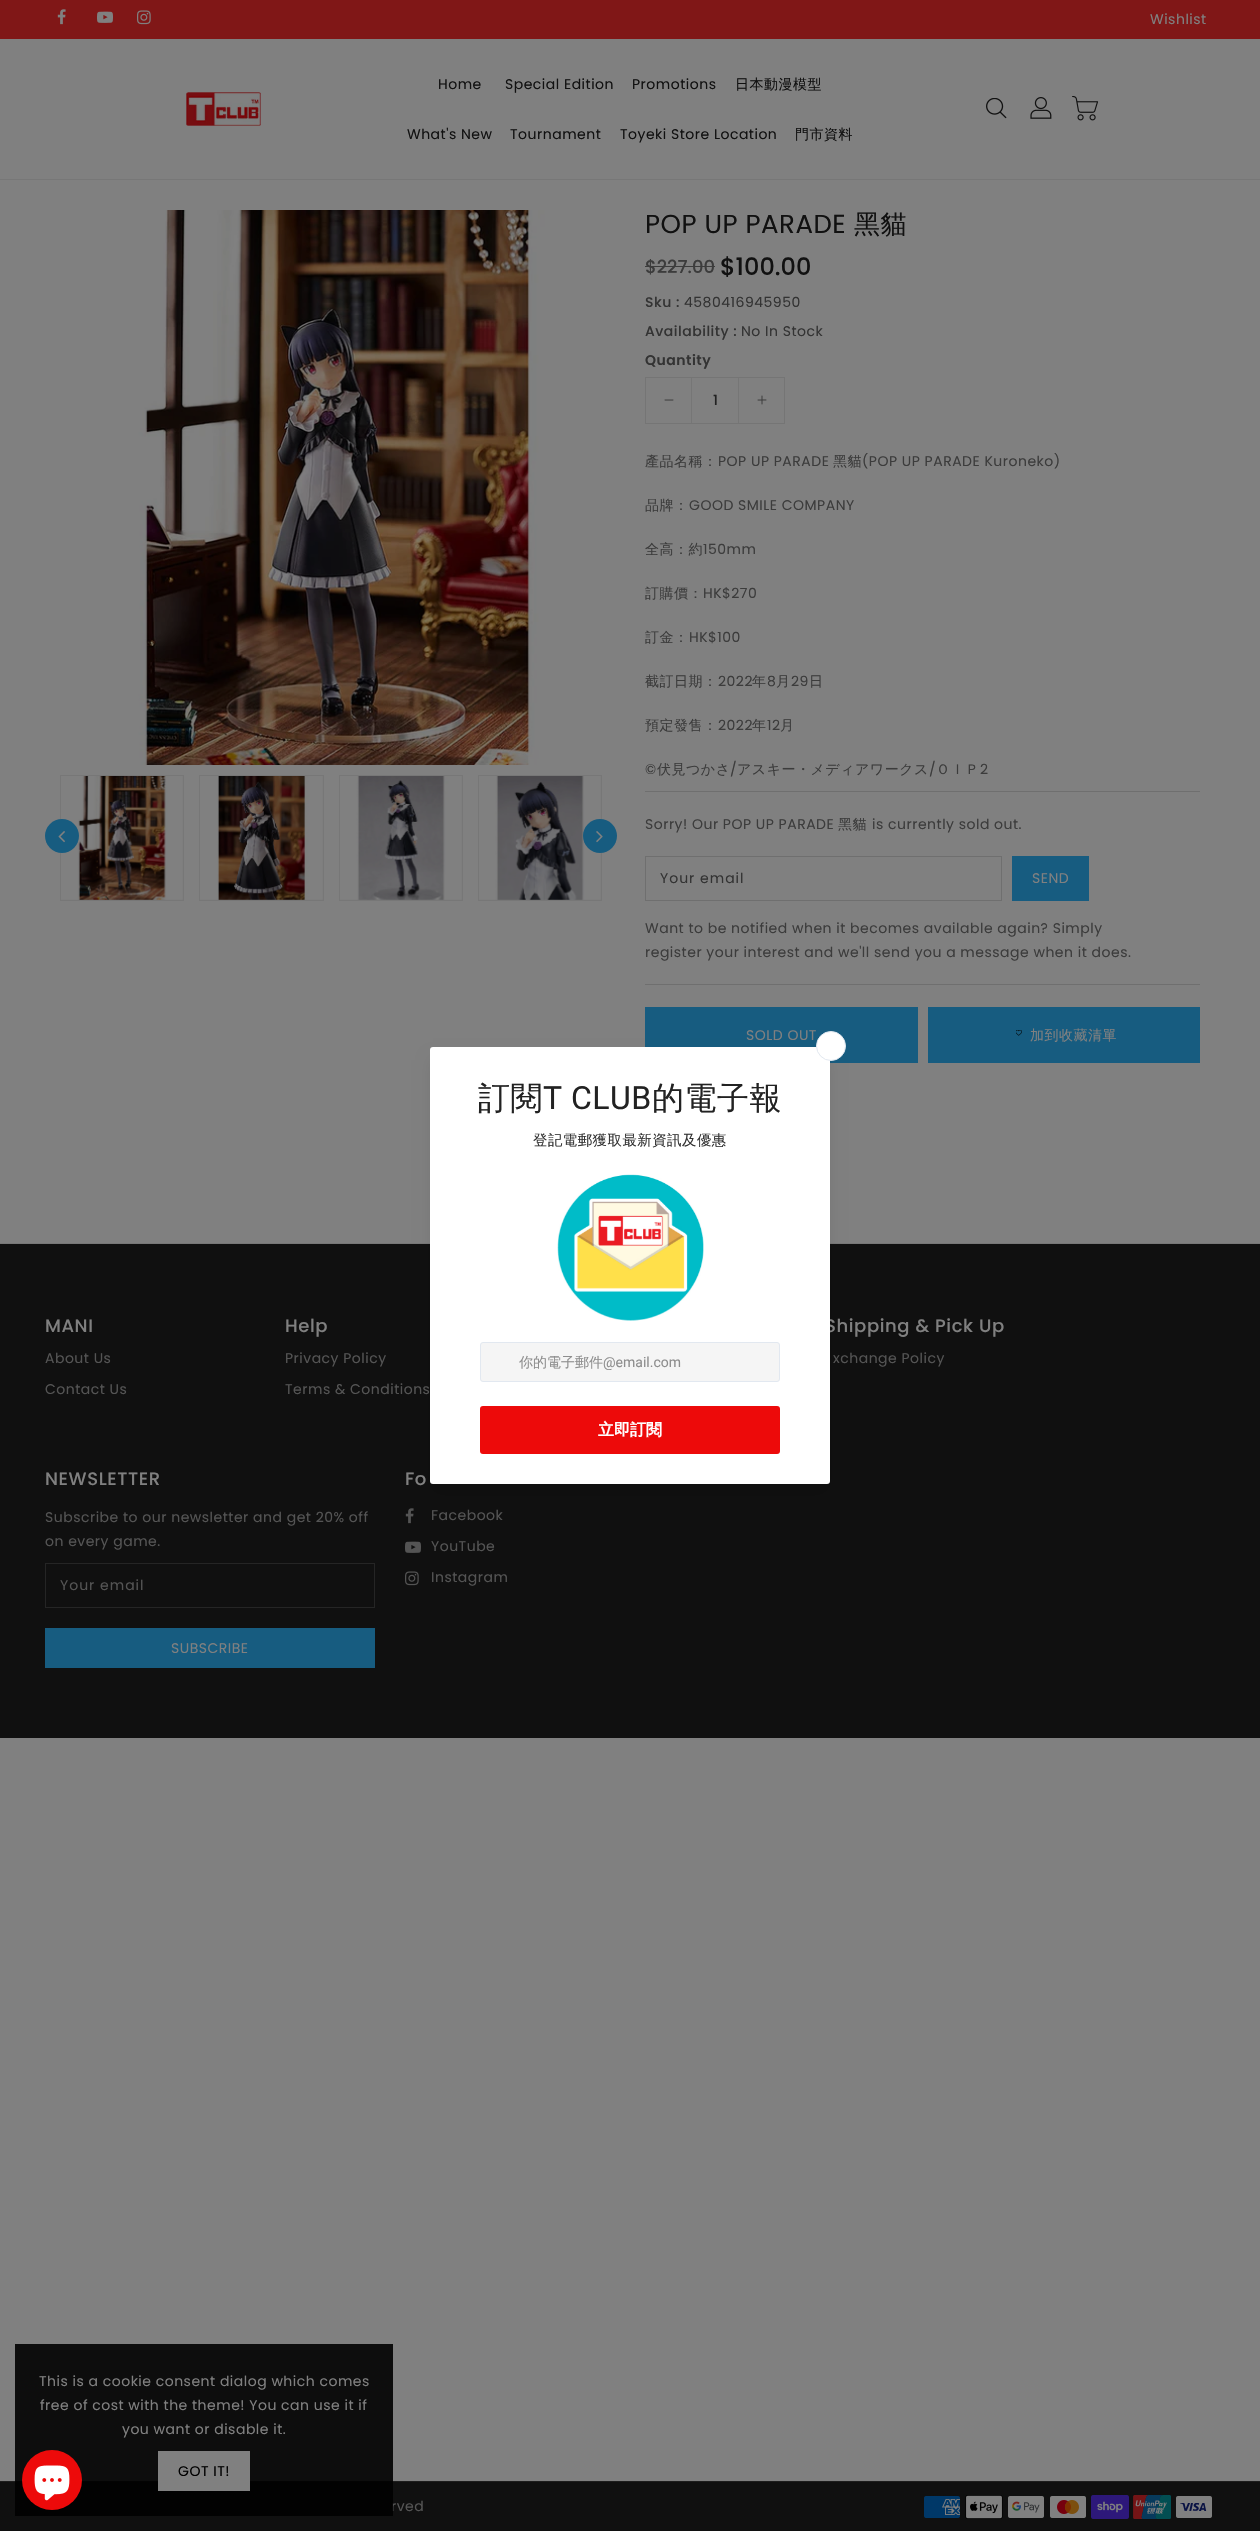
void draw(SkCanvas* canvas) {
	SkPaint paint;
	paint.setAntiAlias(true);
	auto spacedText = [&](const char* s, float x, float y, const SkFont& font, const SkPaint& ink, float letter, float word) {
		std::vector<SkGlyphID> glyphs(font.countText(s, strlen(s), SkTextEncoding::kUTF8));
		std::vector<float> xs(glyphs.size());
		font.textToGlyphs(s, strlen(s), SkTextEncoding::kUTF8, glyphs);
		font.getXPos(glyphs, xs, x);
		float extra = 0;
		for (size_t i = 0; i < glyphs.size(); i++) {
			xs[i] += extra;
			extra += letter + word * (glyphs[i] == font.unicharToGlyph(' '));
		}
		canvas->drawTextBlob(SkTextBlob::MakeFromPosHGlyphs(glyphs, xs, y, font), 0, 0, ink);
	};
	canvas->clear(0xff808080);
	paint.setColor(0xff801717);
	canvas->drawRect(SkRect::MakeXYWH(0, 0, 1260, 39), paint);
	canvas->drawImageRect(SkImages::DeferredFromEncodedData(SkData::MakeFromFileName("img1.png")), SkRect::MakeXYWH(57, 9, 9, 16), SkSamplingOptions());
	canvas->drawImageRect(SkImages::DeferredFromEncodedData(SkData::MakeFromFileName("img2.png")), SkRect::MakeXYWH(97, 11, 16, 12), SkSamplingOptions());
	canvas->drawImageRect(SkImages::DeferredFromEncodedData(SkData::MakeFromFileName("img3.png")), SkRect::MakeXYWH(137, 10, 14, 15), SkSamplingOptions());
	SkFont f1(fontMgr->matchFamilyStyle("Poppins", SkFontStyle::Normal()), 14);
	f1.setSubpixel(true);
	paint.setColor(0xff808080);
	spacedText("Wishlist", 1150, 24, f1, paint, 0.5, 0);
	paint.setColor(0xff777777);
	canvas->drawRect(SkRect::MakeXYWH(0, 179, 1260, 1), paint);
	canvas->drawImageRect(SkImages::DeferredFromEncodedData(SkData::MakeFromFileName("img4.png")), SkRect::MakeXYWH(186, 92, 75, 34), SkSamplingOptions());
	paint.setColor(0xff111111);
	spacedText("Home", 438, 89, f1, paint, 0.5, 0);
	spacedText("Special Edition", 505, 89, f1, paint, 0.5, 0);
	spacedText("Promotions", 632, 89, f1, paint, 0.5, 0);
	SkFont f2(fontMgr->matchFamilyStyle("WenQuanYi Zen Hei", SkFontStyle(500, SkFontStyle::kNormal_Width, SkFontStyle::kUpright_Slant)), 14);
	f2.setSubpixel(true);
	spacedText("日本動漫模型", 735, 89, f2, paint, 0.5, 0);
	spacedText("What's New", 407, 139, f1, paint, 0.5, 0);
	spacedText("Tournament", 510, 139, f1, paint, 0.5, 0);
	spacedText("Toyeki Store Location", 620, 139, f1, paint, 0.5, 0);
	spacedText("門市資料", 795, 139, f2, paint, 0.5, 0);
	canvas->drawImageRect(SkImages::DeferredFromEncodedData(SkData::MakeFromFileName("img5.png")), SkRect::MakeXYWH(986, 98, 21, 21), SkSamplingOptions());
	canvas->drawImageRect(SkImages::DeferredFromEncodedData(SkData::MakeFromFileName("img6.png")), SkRect::MakeXYWH(1030, 97, 22, 22), SkSamplingOptions());
	canvas->drawImageRect(SkImages::DeferredFromEncodedData(SkData::MakeFromFileName("img7.png")), SkRect::MakeXYWH(1072, 96, 27, 25), SkSamplingOptions());
	canvas->drawImageRect(SkImages::DeferredFromEncodedData(SkData::MakeFromFileName("img8.png")), SkRect::MakeXYWH(60, 210, 555, 555), SkSamplingOptions());
	paint.setColor(0xff757575);
	canvas->drawRect(SkRect::MakeXYWH(60.5, 775.5, 123, 125), paint);
	paint.setStroke(true);
	paint.setStrokeWidth(1);
	paint.setColor(0xff777777);
	canvas->drawRect(SkRect::MakeXYWH(60.5, 775.5, 123, 125), paint);
	canvas->drawImageRect(SkImages::DeferredFromEncodedData(SkData::MakeFromFileName("img9.png")), SkRect::MakeXYWH(61, 776, 122, 124), SkSamplingOptions());
	paint.setStroke(false);
	paint.setColor(0xff757575);
	canvas->drawRect(SkRect::MakeXYWH(199.5, 775.5, 124, 125), paint);
	paint.setStroke(true);
	paint.setColor(0xff777777);
	canvas->drawRect(SkRect::MakeXYWH(199.5, 775.5, 124, 125), paint);
	canvas->drawImageRect(SkImages::DeferredFromEncodedData(SkData::MakeFromFileName("img10.png")), SkRect::MakeXYWH(200, 776, 123, 124), SkSamplingOptions());
	paint.setStroke(false);
	paint.setColor(0xff757575);
	canvas->drawRect(SkRect::MakeXYWH(339.5, 775.5, 123, 125), paint);
	paint.setStroke(true);
	paint.setColor(0xff777777);
	canvas->drawRect(SkRect::MakeXYWH(339.5, 775.5, 123, 125), paint);
	canvas->drawImageRect(SkImages::DeferredFromEncodedData(SkData::MakeFromFileName("img11.png")), SkRect::MakeXYWH(340, 776, 122, 124), SkSamplingOptions());
	paint.setStroke(false);
	paint.setColor(0xff757575);
	canvas->drawRect(SkRect::MakeXYWH(478.5, 775.5, 123, 125), paint);
	paint.setStroke(true);
	paint.setColor(0xff777777);
	canvas->drawRect(SkRect::MakeXYWH(478.5, 775.5, 123, 125), paint);
	canvas->drawImageRect(SkImages::DeferredFromEncodedData(SkData::MakeFromFileName("img12.png")), SkRect::MakeXYWH(479, 776, 122, 124), SkSamplingOptions());
	paint.setStroke(false);
	paint.setColor(0xff175c80);
	canvas->drawCircle(62, 836, 17, paint);
	canvas->drawImageRect(SkImages::DeferredFromEncodedData(SkData::MakeFromFileName("img13.png")), SkRect::MakeXYWH(58, 831, 7, 12), SkSamplingOptions());
	canvas->drawCircle(600, 836, 17, paint);
	canvas->drawImageRect(SkImages::DeferredFromEncodedData(SkData::MakeFromFileName("img14.png")), SkRect::MakeXYWH(596, 831, 7, 12), SkSamplingOptions());
	SkFont f3(fontMgr->matchFamilyStyle("Poppins", SkFontStyle::Normal()), 26);
	f3.setSubpixel(true);
	paint.setColor(0xff111111);
	spacedText("POP UP PARADE", 645, 233, f3, paint, 0.5, 0);
	SkFont f4(fontMgr->matchFamilyStyle("WenQuanYi Zen Hei", SkFontStyle(500, SkFontStyle::kNormal_Width, SkFontStyle::kUpright_Slant)), 26);
	f4.setSubpixel(true);
	spacedText("黑貓", 854, 233, f4, paint, 0.5, 0);
	SkFont f5(fontMgr->matchFamilyStyle("Poppins", SkFontStyle(500, SkFontStyle::kNormal_Width, SkFontStyle::kUpright_Slant)), 18);
	f5.setSubpixel(true);
	paint.setColor(0xff3c3c3c);
	canvas->drawString("$227.00", 645, 273, f5, paint);
	canvas->drawRect(SkRect::MakeXYWH(645, 266, 70, 1), paint);
	SkFont f6(fontMgr->matchFamilyStyle("Poppins", SkFontStyle(500, SkFontStyle::kNormal_Width, SkFontStyle::kUpright_Slant)), 24);
	f6.setSubpixel(true);
	paint.setColor(0xff111111);
	canvas->drawString("$100.00", 720, 275, f6, paint);
	SkFont f7(fontMgr->matchFamilyStyle("Poppins", SkFontStyle(500, SkFontStyle::kNormal_Width, SkFontStyle::kUpright_Slant)), 14);
	f7.setSubpixel(true);
	paint.setColor(0xff333333);
	spacedText("Sku :", 645, 307, f7, paint, 0.5, 0);
	spacedText("4580416945950", 684, 307, f1, paint, 0.5, 0);
	spacedText("Availability :", 645, 336, f7, paint, 0.5, 0);
	spacedText("No In Stock", 741, 336, f1, paint, 0.5, 0);
	SkFont f8(fontMgr->matchFamilyStyle("Poppins", SkFontStyle(600, SkFontStyle::kNormal_Width, SkFontStyle::kUpright_Slant)), 14);
	f8.setSubpixel(true);
	spacedText("Quantity", 645, 365, f8, paint, 0.5, 0);
	paint.setStroke(true);
	paint.setColor(0xff757575);
	canvas->drawRect(SkRect::MakeXYWH(645.5, 377.5, 139, 46), paint);
	canvas->drawImageRect(SkImages::DeferredFromEncodedData(SkData::MakeFromFileName("img15.png")), SkRect::MakeXYWH(664, 399, 10, 2), SkSamplingOptions());
	paint.setStroke(false);
	paint.setColor(0xff767676);
	canvas->drawRect(SkRect::MakeXYWH(738, 378, 1, 45), paint);
	canvas->drawRect(SkRect::MakeXYWH(691, 378, 1, 45), paint);
	paint.setColor(0xff222222);
	canvas->drawString("1", 713, 405, f7, paint);
	canvas->drawImageRect(SkImages::DeferredFromEncodedData(SkData::MakeFromFileName("img16.png")), SkRect::MakeXYWH(757, 395, 10, 10), SkSamplingOptions());
	paint.setColor(0xff3c3c3c);
	spacedText("產品名稱：", 645, 466, f2, paint, 0.5, 0);
	spacedText("POP UP PARADE", 718, 466, f1, paint, 0.5, 0);
	spacedText("黑貓", 833, 466, f2, paint, 0.5, 0);
	spacedText("(POP UP PARADE Kuroneko)", 862, 466, f1, paint, 0.5, 0);
	spacedText("品牌：", 645, 510, f2, paint, 0.5, 0);
	spacedText("GOOD SMILE COMPANY", 689, 510, f1, paint, 0.5, 0);
	spacedText("全高：約", 645, 554, f2, paint, 0.5, 0);
	spacedText("150mm", 703, 554, f1, paint, 0.5, 0);
	spacedText("訂購價：", 645, 598, f2, paint, 0.5, 0);
	spacedText("HK$270", 703, 598, f1, paint, 0.5, 0);
	spacedText("訂金：", 645, 642, f2, paint, 0.5, 0);
	spacedText("HK$100", 689, 642, f1, paint, 0.5, 0);
	spacedText("截訂日期：", 645, 686, f2, paint, 0.5, 0);
	spacedText("2022", 718, 686, f1, paint, 0.5, 0);
	spacedText("年", 752, 686, f2, paint, 0.5, 0);
	spacedText("8", 767, 686, f1, paint, 0.5, 0);
	spacedText("月", 776, 686, f2, paint, 0.5, 0);
	spacedText("29", 791, 686, f1, paint, 0.5, 0);
	spacedText("日", 809, 686, f2, paint, 0.5, 0);
	spacedText("預定發售：", 645, 730, f2, paint, 0.5, 0);
	spacedText("2022", 718, 730, f1, paint, 0.5, 0);
	spacedText("年", 752, 730, f2, paint, 0.5, 0);
	spacedText("12", 767, 730, f1, paint, 0.5, 0);
	spacedText("月", 780, 730, f2, paint, 0.5, 0);
	spacedText("©", 645, 774, f1, paint, 0.5, 0);
	spacedText("伏見つかさ", 657, 774, f2, paint, 0.5, 0);
	spacedText("/", 730, 774, f1, paint, 0.5, 0);
	spacedText("アスキー・メディアワークス", 737, 774, f2, paint, 0.5, 0);
	spacedText("/", 929, 774, f1, paint, 0.5, 0);
	spacedText("ＯＩＰ", 936, 774, f2, paint, 0.5, 0);
	spacedText("2", 980, 774, f1, paint, 0.5, 0);
	paint.setColor(0xff6f6f6f);
	canvas->drawRect(SkRect::MakeXYWH(645, 791, 555, 1), paint);
	canvas->drawRect(SkRect::MakeXYWH(645, 984, 555, 1), paint);
	paint.setColor(0xff3c3c3c);
	spacedText("Sorry! Our POP UP PARADE", 645, 829, f1, paint, 0.5, 0);
	spacedText("黑貓", 838, 829, f2, paint, 0.5, 0);
	spacedText("is currently sold out.", 872, 829, f1, paint, 0.5, 0);
	paint.setStroke(true);
	paint.setColor(0xff6f6f6f);
	canvas->drawRect(SkRect::MakeXYWH(645.5, 856.5, 356, 44), paint);
	paint.setStroke(false);
	paint.setColor(0xff333333);
	spacedText("Your email", 660, 883, f1, paint, 1, 0);
	paint.setColor(0xff175c80);
	canvas->drawRect(SkRect::MakeXYWH(1012, 856, 77, 45), paint);
	paint.setColor(0xff808080);
	spacedText("SEND", 1032, 883, f1, paint, 0.5, 0);
	paint.setColor(0xff3c3c3c);
	spacedText("Want to be notified when it becomes available again? Simply", 645, 933, f1, paint, 0.5, 0);
	spacedText("register your interest and we'll send you a message when it does.", 645, 957, f1, paint, 0.5, 0);
	paint.setColor(0xff175c80);
	canvas->drawRect(SkRect::MakeXYWH(645, 1007, 273, 56), paint);
	paint.setColor(0xff808080);
	spacedText("SOLD OUT", 746, 1040, f1, paint, 0.5, 0);
	paint.setColor(0xff175c80);
	canvas->drawRect(SkRect::MakeXYWH(928, 1007, 272, 56), paint);
	canvas->drawImageRect(SkImages::DeferredFromEncodedData(SkData::MakeFromFileName("img17.png")), SkRect::MakeXYWH(1016, 1030, 6, 6), SkSamplingOptions());
	paint.setColor(0xff808080);
	spacedText("加到收藏清單", 1030, 1040, f2, paint, 0.5, 0);
	paint.setColor(0xff101010);
	canvas->drawRect(SkRect::MakeXYWH(0, 1244, 1260, 494), paint);
	paint.setColor(0xff777777);
	canvas->drawRect(SkRect::MakeXYWH(0, 1243, 1260, 1), paint);
	canvas->drawImageRect(SkImages::DeferredFromEncodedData(SkData::MakeFromFileName("img19.png")), SkRect::MakeXYWH(405, 1508, 9, 16), SkSamplingOptions());
	paint.setColor(0x1a000000);
	paint.setMaskFilter(SkMaskFilter::MakeBlur(kNormal_SkBlurStyle, 7.5));
	canvas->drawRect(SkRect::MakeXYWH(433, 1060, 394, 431), paint);
	paint.setMaskFilter(nullptr);
	paint.setColor(0xff808080);
	spacedText("Shipping & Pick Up", 825, 1332, f5, paint, 0.6, 0);
	paint.setColor(0xffffffff);
	canvas->drawRoundRect(SkRect::MakeXYWH(430, 1047, 400, 437), 3, 3, paint);
	canvas->drawCircle(831, 1046, 14.5, paint);
	paint.setStroke(true);
	paint.setColor(0xffe2e8f0);
	canvas->drawCircle(831, 1046, 14.5, paint);
	SkFont f9(fontMgr->matchFamilyStyle("WenQuanYi Zen Hei", SkFontStyle(500, SkFontStyle::kNormal_Width, SkFontStyle::kUpright_Slant)), 32);
	f9.setSubpixel(true);
	paint.setStroke(false);
	paint.setColor(0xff222222);
	spacedText("訂閱", 478, 1109, f9, paint, 0.5, 0);
	SkFont f10(fontMgr->matchFamilyStyle("Roboto", SkFontStyle::Normal()), 32);
	f10.setSubpixel(true);
	spacedText("T CLUB", 543, 1109, f10, paint, 0.5, 0);
	spacedText("的電子報", 652, 1109, f9, paint, 0.5, 0);
	SkFont f11(fontMgr->matchFamilyStyle("WenQuanYi Zen Hei", SkFontStyle(500, SkFontStyle::kNormal_Width, SkFontStyle::kUpright_Slant)), 14.4);
	f11.setSubpixel(true);
	paint.setColor(0xff333333);
	spacedText("登記電郵獲取最新資訊及優惠", 533, 1145, f11, paint, 0.5, 0);
	canvas->drawImageRect(SkImages::DeferredFromEncodedData(SkData::MakeFromFileName("img18.png")), SkRect::MakeXYWH(557, 1174, 147, 147), SkSamplingOptions());
	paint.setColor(0xfff5f5f5);
	canvas->drawRoundRect(SkRect::MakeXYWH(480.5, 1342.5, 299, 39), 2.5, 2.5, paint);
	paint.setStroke(true);
	paint.setColor(0xffe2e8f0);
	canvas->drawRoundRect(SkRect::MakeXYWH(480.5, 1342.5, 299, 39), 2.5, 2.5, paint);
	paint.setStroke(false);
	paint.setColor(0xff8e8e8e);
	canvas->drawString("你的電子郵件", 519, 1367, f2, paint);
	SkFont f12(fontMgr->matchFamilyStyle("Roboto", SkFontStyle::Normal()), 14);
	f12.setSubpixel(true);
	canvas->drawString("@email.com", 603, 1367, f12, paint);
	paint.setColor(0xffed0a0a);
	canvas->drawRoundRect(SkRect::MakeXYWH(480, 1406, 300, 48), 3, 3, paint);
	SkFont f13(fontMgr->matchFamilyStyle("WenQuanYi Zen Hei", SkFontStyle::Bold()), 16);
	f13.setSubpixel(true);
	paint.setColor(0xffffffff);
	canvas->drawString("立即訂閱", 598, 1435, f13, paint);
	paint.setColor(0xff808080);
	spacedText("MANI", 45, 1332, f5, paint, 0.6, 0);
	paint.setColor(0xff545454);
	spacedText("About Us", 45, 1363, f1, paint, 0.5, 0);
	spacedText("Contact Us", 45, 1394, f1, paint, 0.5, 0);
	paint.setColor(0xff808080);
	spacedText("Help", 285, 1332, f5, paint, 0.6, 0);
	paint.setColor(0xff545454);
	spacedText("Privacy Policy", 285, 1363, f1, paint, 0.5, 0);
	spacedText("Terms & Conditions", 285, 1394, f1, paint, 0.5, 0);
	spacedText("xchange Policy", 833, 1363, f1, paint, 0.5, 0);
	paint.setColor(0xff808080);
	spacedText("NEWSLETTER", 45, 1485, f5, paint, 0.6, 0);
	paint.setColor(0xff545454);
	spacedText("Subscribe to our newsletter and get 20% off", 45, 1522, f1, paint, 0.5, 0);
	spacedText("on every game.", 45, 1546, f1, paint, 0.5, 0);
	paint.setStroke(true);
	paint.setColor(0xff252525);
	canvas->drawRect(SkRect::MakeXYWH(45.5, 1563.5, 329, 44), paint);
	paint.setStroke(false);
	paint.setColor(0xff545454);
	spacedText("Your email", 60, 1590, f1, paint, 1, 0);
	paint.setColor(0xff175c80);
	canvas->drawRect(SkRect::MakeXYWH(45, 1628, 330, 40), paint);
	paint.setColor(0xff808080);
	spacedText("SUBSCRIBE", 171, 1653, f1, paint, 0.5, 0);
	spacedText("Fo", 405, 1485, f5, paint, 0.6, 0);
	paint.setColor(0xff545454);
	spacedText("Facebook", 431, 1520, f1, paint, 0.5, 0);
	canvas->drawImageRect(SkImages::DeferredFromEncodedData(SkData::MakeFromFileName("img20.png")), SkRect::MakeXYWH(405, 1541, 16, 12), SkSamplingOptions());
	spacedText("YouTube", 431, 1551, f1, paint, 0.5, 0);
	canvas->drawImageRect(SkImages::DeferredFromEncodedData(SkData::MakeFromFileName("img21.png")), SkRect::MakeXYWH(405, 1571, 14, 15), SkSamplingOptions());
	spacedText("Instagram", 431, 1582, f1, paint, 0.5, 0);
	paint.setColor(0xff101010);
	canvas->drawRect(SkRect::MakeXYWH(0, 2482, 1260, 49), paint);
	paint.setColor(0xff1e1e1e);
	canvas->drawRect(SkRect::MakeXYWH(0, 2481, 1260, 1), paint);
	paint.setColor(0xff545454);
	spacedText("rved", 391, 2511, f1, paint, 0.5, 0);
	paint.setColor(0xe6000000);
	canvas->drawRect(SkRect::MakeXYWH(15, 2344, 378, 172), paint);
	paint.setColor(0xff808080);
	spacedText("This is a cookie consent dialog which comes", 39, 2386, f1, paint, 0.5, 0);
	spacedText("free of cost with the theme! You can use it if", 40, 2410, f1, paint, 0.5, 0);
	spacedText("you want or disable it.", 122, 2434, f1, paint, 0.5, 0);
	canvas->drawRect(SkRect::MakeXYWH(158, 2451, 92, 40), paint);
	paint.setColor(0xff000000);
	spacedText("GOT IT!", 178, 2476, f1, paint, 0.5, 0);
	paint.setColor(0xffed0a0a);
	canvas->drawCircle(52, 2480, 30, paint);
	canvas->drawImageRect(SkImages::DeferredFromEncodedData(SkData::MakeFromFileName("img22.png")), SkRect::MakeXYWH(34, 2465, 36, 36), SkSamplingOptions());
	canvas->drawImageRect(SkImages::DeferredFromEncodedData(SkData::MakeFromFileName("img23.png")), SkRect::MakeXYWH(924, 2496, 36, 22), SkSamplingOptions());
	canvas->drawImageRect(SkImages::DeferredFromEncodedData(SkData::MakeFromFileName("img24.png")), SkRect::MakeXYWH(965, 2495, 38, 24), SkSamplingOptions());
	canvas->drawImageRect(SkImages::DeferredFromEncodedData(SkData::MakeFromFileName("img25.png")), SkRect::MakeXYWH(1008, 2496, 36, 22), SkSamplingOptions());
	canvas->drawImageRect(SkImages::DeferredFromEncodedData(SkData::MakeFromFileName("img26.png")), SkRect::MakeXYWH(1050, 2496, 36, 22), SkSamplingOptions());
	canvas->drawImageRect(SkImages::DeferredFromEncodedData(SkData::MakeFromFileName("img27.png")), SkRect::MakeXYWH(1091, 2495, 38, 24), SkSamplingOptions());
	canvas->drawImageRect(SkImages::DeferredFromEncodedData(SkData::MakeFromFileName("img28.png")), SkRect::MakeXYWH(1133, 2495, 38, 24), SkSamplingOptions());
	canvas->drawImageRect(SkImages::DeferredFromEncodedData(SkData::MakeFromFileName("img29.png")), SkRect::MakeXYWH(1176, 2496, 36, 22), SkSamplingOptions());
}
